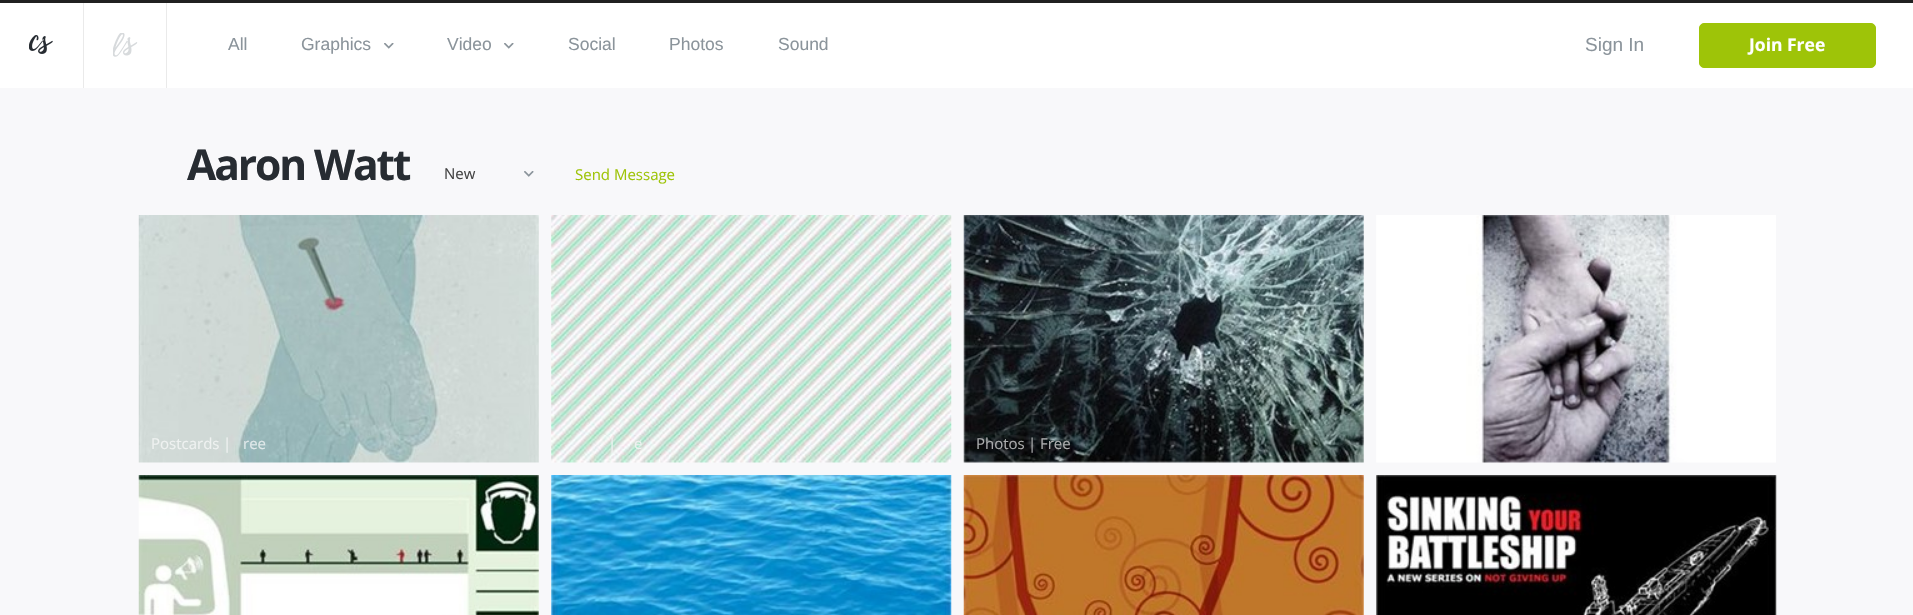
void draw(SkCanvas* canvas) {
	SkPaint paint;
	paint.setAntiAlias(true);
	auto spacedText = [&](const char* s, float x, float y, const SkFont& font, const SkPaint& ink, float letter, float word) {
		std::vector<SkGlyphID> glyphs(font.countText(s, strlen(s), SkTextEncoding::kUTF8));
		std::vector<float> xs(glyphs.size());
		font.textToGlyphs(s, strlen(s), SkTextEncoding::kUTF8, glyphs);
		font.getXPos(glyphs, xs, x);
		float extra = 0;
		for (size_t i = 0; i < glyphs.size(); i++) {
			xs[i] += extra;
			extra += letter + word * (glyphs[i] == font.unicharToGlyph(' '));
		}
		canvas->drawTextBlob(SkTextBlob::MakeFromPosHGlyphs(glyphs, xs, y, font), 0, 0, ink);
	};
	canvas->clear(0xffffffff);
	paint.setColor(0xff202020);
	canvas->drawRect(SkRect::MakeXYWH(0, 0, 1913, 3), paint);
	paint.setColor(0xffeaeaea);
	canvas->drawRect(SkRect::MakeXYWH(83, 3, 1, 85), paint);
	canvas->drawImageRect(SkImages::DeferredFromEncodedData(SkData::MakeFromFileName("img1.png")), SkRect::MakeXYWH(29, 35, 24, 19), SkSamplingOptions());
	canvas->drawRect(SkRect::MakeXYWH(166, 3, 1, 85), paint);
	canvas->drawImageRect(SkImages::DeferredFromEncodedData(SkData::MakeFromFileName("img2.png")), SkRect::MakeXYWH(113, 33, 25, 24), SkSamplingOptions());
	SkFont f1(fontMgr->matchFamilyStyle("Liberation Sans", SkFontStyle::Normal()), 17.5);
	f1.setSubpixel(true);
	paint.setColor(0xff8b949b);
	canvas->drawString("All", 228, 50, f1, paint);
	canvas->drawString("Graphics", 301, 50, f1, paint);
	canvas->drawImageRect(SkImages::DeferredFromEncodedData(SkData::MakeFromFileName("img3.png")), SkRect::MakeXYWH(384, 43, 10, 6), SkSamplingOptions());
	canvas->drawString("Video", 447, 50, f1, paint);
	canvas->drawImageRect(SkImages::DeferredFromEncodedData(SkData::MakeFromFileName("img3.png")), SkRect::MakeXYWH(504, 43, 10, 6), SkSamplingOptions());
	canvas->drawString("Social", 568, 50, f1, paint);
	canvas->drawString("Photos", 669, 50, f1, paint);
	canvas->drawString("Sound", 778, 50, f1, paint);
	SkFont f2(fontMgr->matchFamilyStyle("Liberation Sans", SkFontStyle::Normal()), 19);
	f2.setSubpixel(true);
	canvas->drawString("Sign In", 1585, 51, f2, paint);
	paint.setColor(0xff9ec408);
	canvas->drawRoundRect(SkRect::MakeXYWH(1699.5, 23.5, 176, 44), 4.5, 4.5, paint);
	paint.setStroke(true);
	paint.setStrokeWidth(1);
	canvas->drawRoundRect(SkRect::MakeXYWH(1699.5, 23.5, 176, 44), 4.5, 4.5, paint);
	SkFont f3(fontMgr->matchFamilyStyle("Open Sans", SkFontStyle::Bold()), 17.5);
	f3.setSubpixel(true);
	paint.setStroke(false);
	paint.setColor(0xffffffff);
	canvas->drawString("Join Free", 1749, 51, f3, paint);
	paint.setColor(0xfff8f8fa);
	canvas->drawRect(SkRect::MakeXYWH(0, 88, 1913, 527), paint);
	SkFont f4(fontMgr->matchFamilyStyle("Open Sans", SkFontStyle::Bold()), 42.5);
	f4.setSubpixel(true);
	paint.setColor(0xff272c32);
	spacedText("Aaron Watt", 187, 180, f4, paint, -2.1, 0);
	SkFont f5(fontMgr->matchFamilyStyle("Open Sans", SkFontStyle::Normal()), 15);
	f5.setSubpixel(true);
	paint.setColor(0xff444444);
	canvas->drawString("New", 444, 179, f5, paint);
	canvas->drawImageRect(SkImages::DeferredFromEncodedData(SkData::MakeFromFileName("img4.png")), SkRect::MakeXYWH(524, 171, 10, 6), SkSamplingOptions());
	paint.setColor(0xff9ec408);
	canvas->drawString("Send Message", 575, 180, f5, paint);
	canvas->drawImageRect(SkImages::DeferredFromEncodedData(SkData::MakeFromFileName("img5.png")), SkRect::MakeXYWH(138, 215, 401, 248), SkSamplingOptions());
	paint.setColor(0xffeff2f1);
	canvas->drawString("Postcards", 151, 449, f5, paint);
	canvas->drawString("|", 223, 449, f5, paint);
	paint.setColor(0xffdfe8e9);
	canvas->drawString("ree", 243, 449, f5, paint);
	canvas->drawImageRect(SkImages::DeferredFromEncodedData(SkData::MakeFromFileName("img6.png")), SkRect::MakeXYWH(551, 215, 401, 248), SkSamplingOptions());
	paint.setColor(0xffeff2f1);
	canvas->drawString("|", 608, 449, f5, paint);
	canvas->drawString("e", 634, 449, f5, paint);
	canvas->drawImageRect(SkImages::DeferredFromEncodedData(SkData::MakeFromFileName("img7.png")), SkRect::MakeXYWH(963, 215, 401, 248), SkSamplingOptions());
	paint.setColor(0xffacadae);
	canvas->drawString("Photos", 976, 449, f5, paint);
	canvas->drawString("|", 1028, 449, f5, paint);
	canvas->drawString("Free", 1040, 449, f5, paint);
	canvas->drawImageRect(SkImages::DeferredFromEncodedData(SkData::MakeFromFileName("img8.png")), SkRect::MakeXYWH(1376, 215, 400, 248), SkSamplingOptions());
	canvas->drawImageRect(SkImages::DeferredFromEncodedData(SkData::MakeFromFileName("img9.png")), SkRect::MakeXYWH(138, 475, 401, 140), SkSamplingOptions());
	canvas->drawImageRect(SkImages::DeferredFromEncodedData(SkData::MakeFromFileName("img10.png")), SkRect::MakeXYWH(551, 475, 401, 140), SkSamplingOptions());
	canvas->drawImageRect(SkImages::DeferredFromEncodedData(SkData::MakeFromFileName("img11.png")), SkRect::MakeXYWH(963, 475, 401, 140), SkSamplingOptions());
	canvas->drawImageRect(SkImages::DeferredFromEncodedData(SkData::MakeFromFileName("img12.png")), SkRect::MakeXYWH(1376, 475, 401, 140), SkSamplingOptions());
}
